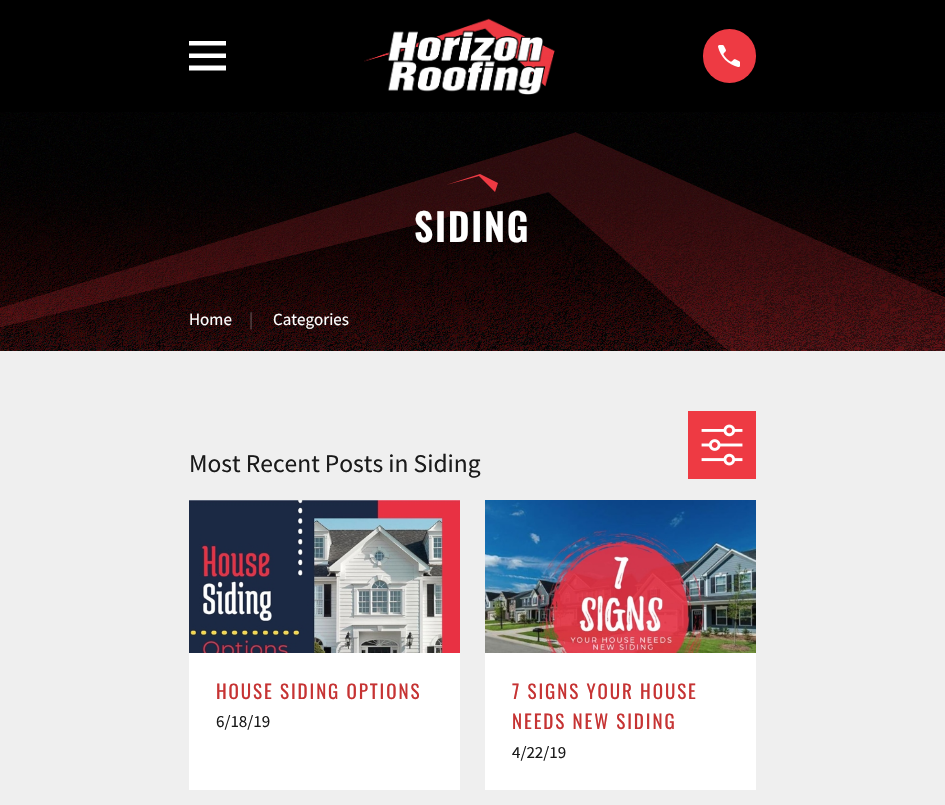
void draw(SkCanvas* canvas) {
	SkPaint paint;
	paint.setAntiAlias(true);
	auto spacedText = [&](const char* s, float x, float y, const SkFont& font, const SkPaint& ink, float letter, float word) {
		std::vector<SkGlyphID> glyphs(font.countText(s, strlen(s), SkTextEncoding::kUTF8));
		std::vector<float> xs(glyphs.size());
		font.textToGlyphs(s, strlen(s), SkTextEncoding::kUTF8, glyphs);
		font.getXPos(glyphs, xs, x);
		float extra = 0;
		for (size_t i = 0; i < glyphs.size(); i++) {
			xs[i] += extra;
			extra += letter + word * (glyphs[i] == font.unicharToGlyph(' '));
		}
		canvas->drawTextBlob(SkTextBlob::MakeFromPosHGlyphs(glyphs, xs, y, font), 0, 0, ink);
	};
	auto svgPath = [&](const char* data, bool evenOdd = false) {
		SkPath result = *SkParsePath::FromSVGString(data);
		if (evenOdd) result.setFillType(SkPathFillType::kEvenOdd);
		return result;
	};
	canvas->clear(0xffefefef);
	paint.setColor(0xff000000);
	canvas->drawRect(SkRect::MakeXYWH(0, 0, 945, 112), paint);
	canvas->save();
	canvas->clipRect(SkRect::MakeXYWH(189, 37, 37, 38));
	paint.setColor(0xffffffff);
	canvas->drawPath(svgPath("M189 41V45.5H226.5V41ZM189 53.5V58H226.5V53.5ZM189 65.5V70.5H226.5V65.5Z"), paint);
	canvas->restore();
	canvas->drawImageRect(SkImages::DeferredFromEncodedData(SkData::MakeFromFileName("img1.png")), SkRect::MakeXYWH(364, 18, 191, 77), SkSamplingOptions());
	paint.setColor(0xffee3a43);
	canvas->drawRoundRect(SkRect::MakeXYWH(703, 29, 53, 54), 26.5, 26.5, paint);
	canvas->drawImageRect(SkImages::DeferredFromEncodedData(SkData::MakeFromFileName("img2.png")), SkRect::MakeXYWH(718, 45, 22, 22), SkSamplingOptions());
	canvas->drawImageRect(SkImages::DeferredFromEncodedData(SkData::MakeFromFileName("img3.png")), SkRect::MakeXYWH(0, 112, 945, 239), SkSamplingOptions());
	canvas->drawPath(svgPath("M498 183L495 192L479 176L446 185L480 174Z"), paint);
	SkFont f1(fontMgr->matchFamilyStyle("Oswald", SkFontStyle(600, SkFontStyle::kNormal_Width, SkFontStyle::kUpright_Slant)), 38);
	f1.setSubpixel(true);
	paint.setColor(0xffffffff);
	spacedText("SIDING", 414, 242, f1, paint, 1.75, 0);
	SkFont f2(fontMgr->matchFamilyStyle("Source Sans Pro", SkFontStyle::Normal()), 17);
	f2.setSubpixel(true);
	canvas->drawString("Home", 189, 325, f2, paint);
	paint.setColor(0xff625152);
	canvas->drawString("|", 249, 325, f2, paint);
	paint.setColor(0xffffffff);
	canvas->drawString("Categories", 273, 325, f2, paint);
	SkFont f3(fontMgr->matchFamilyStyle("Source Sans Pro", SkFontStyle::Normal()), 25.5);
	f3.setSubpixel(true);
	paint.setColor(0xff1a1a1a);
	canvas->drawString("Most Recent Posts in Siding", 189, 472, f3, paint);
	paint.setColor(0xffee3a43);
	canvas->drawRect(SkRect::MakeXYWH(688, 411, 68, 68), paint);
	canvas->drawImageRect(SkImages::DeferredFromEncodedData(SkData::MakeFromFileName("img4.png")), SkRect::MakeXYWH(701, 424, 42, 42), SkSamplingOptions());
	canvas->drawImageRect(SkImages::DeferredFromEncodedData(SkData::MakeFromFileName("img5.png")), SkRect::MakeXYWH(189, 500, 271, 153), SkSamplingOptions());
	paint.setColor(0xffffffff);
	canvas->drawRect(SkRect::MakeXYWH(189, 653, 271, 137), paint);
	SkFont f4(fontMgr->matchFamilyStyle("Oswald", SkFontStyle::Normal()), 19.1);
	f4.setSubpixel(true);
	paint.setColor(0xffc63333);
	spacedText("HOUSE SIDING OPTIONS", 216, 699, f4, paint, 1.9, 0);
	paint.setColor(0xff1a1a1a);
	canvas->drawString("6/18/19", 216, 727, f2, paint);
	canvas->drawImageRect(SkImages::DeferredFromEncodedData(SkData::MakeFromFileName("img6.png")), SkRect::MakeXYWH(485, 500, 271, 153), SkSamplingOptions());
	paint.setColor(0xffffffff);
	canvas->drawRect(SkRect::MakeXYWH(485, 653, 271, 137), paint);
	paint.setColor(0xffc63333);
	spacedText("7 SIGNS YOUR HOUSE", 512, 699, f4, paint, 1.9, 0);
	spacedText("NEEDS NEW SIDING", 512, 729, f4, paint, 1.9, 0);
	paint.setColor(0xff1a1a1a);
	canvas->drawString("4/22/19", 512, 758, f2, paint);
}
